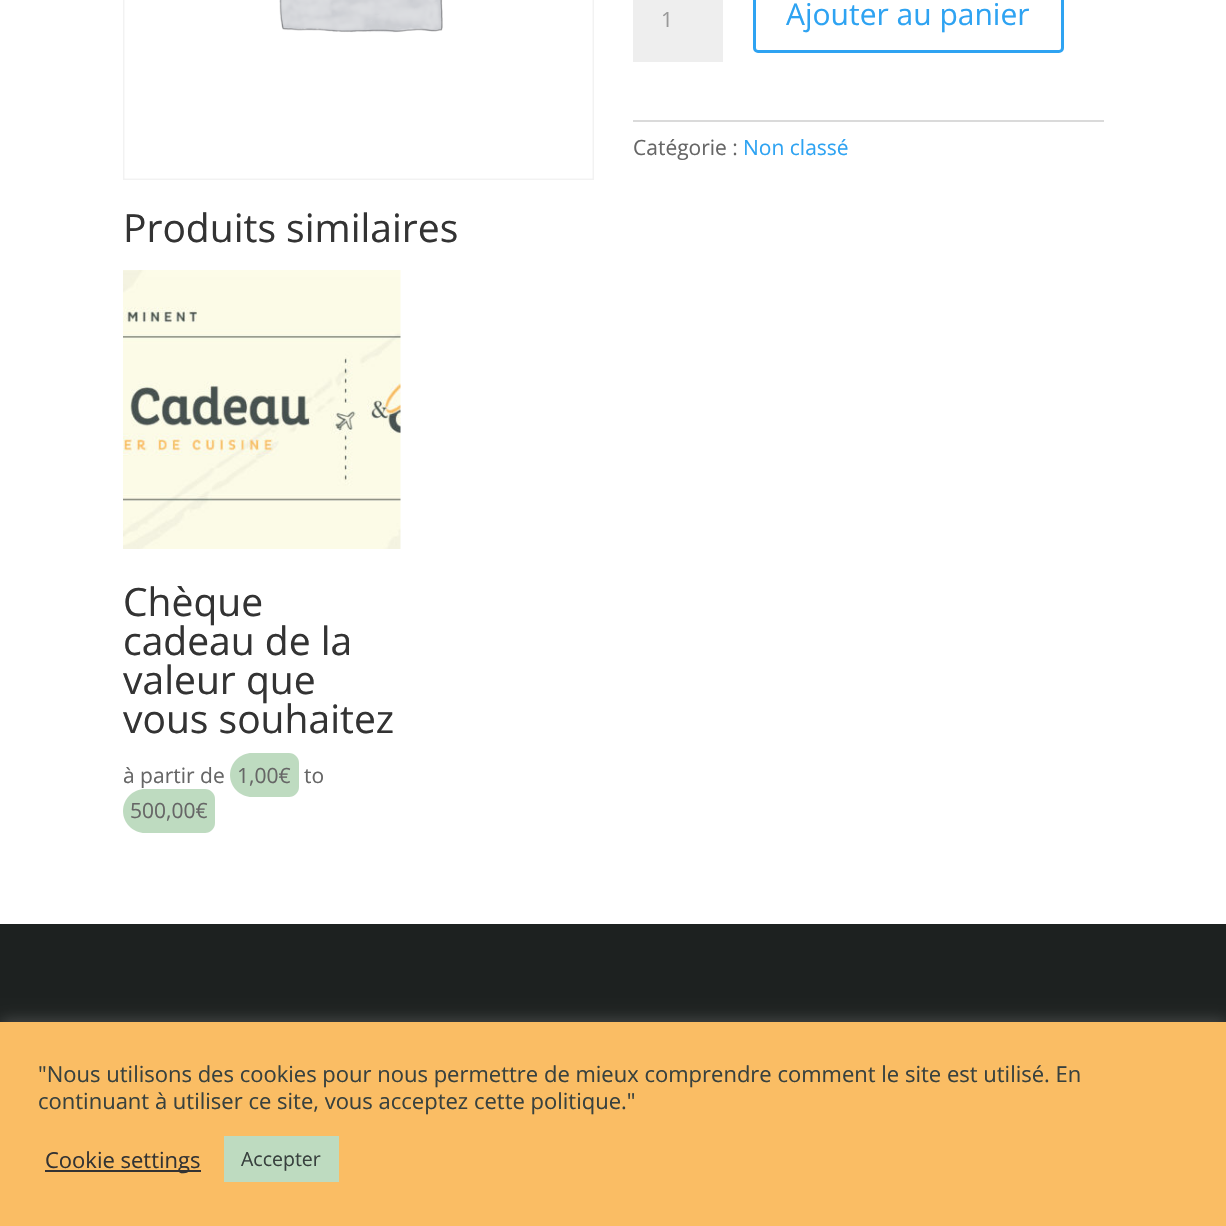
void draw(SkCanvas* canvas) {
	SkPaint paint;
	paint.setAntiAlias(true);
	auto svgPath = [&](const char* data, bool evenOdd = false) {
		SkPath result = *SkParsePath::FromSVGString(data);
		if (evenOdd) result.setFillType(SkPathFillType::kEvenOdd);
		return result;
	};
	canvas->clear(0xffffffff);
	paint.setStroke(true);
	paint.setStrokeWidth(2);
	paint.setColor(0xfff2f2f2);
	canvas->drawRect(SkRect::MakeXYWH(124, -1, 469, 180), paint);
	canvas->drawImageRect(SkImages::DeferredFromEncodedData(SkData::MakeFromFileName("img1.png")), SkRect::MakeXYWH(124, 0, 469, 179), SkSamplingOptions());
	paint.setStroke(false);
	paint.setColor(0xffeeeeee);
	canvas->drawRect(SkRect::MakeXYWH(633, 0, 90, 62), paint);
	SkFont f1(fontMgr->matchFamilyStyle("Open Sans", SkFontStyle::Normal()), 21);
	f1.setSubpixel(true);
	paint.setColor(0xff999999);
	canvas->drawString("1", 661, 27, f1, paint);
	paint.setStroke(true);
	paint.setStrokeWidth(3);
	paint.setColor(0xff2ea3f2);
	canvas->drawRoundRect(SkRect::MakeXYWH(754.5, -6.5, 308, 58), 3.5, 3.5, paint);
	SkFont f2(fontMgr->matchFamilyStyle("Open Sans", SkFontStyle::Normal()), 30);
	f2.setSubpixel(true);
	paint.setStroke(false);
	canvas->drawString("Ajouter au panier", 786, 25, f2, paint);
	paint.setColor(0xffdadada);
	canvas->drawRect(SkRect::MakeXYWH(633, 120, 471, 2), paint);
	paint.setColor(0xff666666);
	canvas->drawString("Catégorie :", 633, 155, f1, paint);
	paint.setColor(0xff2ea3f2);
	canvas->drawString("Non classé", 743, 155, f1, paint);
	SkFont f3(fontMgr->matchFamilyStyle("Open Sans", SkFontStyle::Normal()), 39);
	f3.setSubpixel(true);
	paint.setColor(0xff333333);
	canvas->drawString("Produits similaires", 123, 242, f3, paint);
	canvas->drawImageRect(SkImages::DeferredFromEncodedData(SkData::MakeFromFileName("img2.png")), SkRect::MakeXYWH(123, 270, 278, 279), SkSamplingOptions());
	canvas->drawString("Chèque", 123, 616, f3, paint);
	canvas->drawString("cadeau de la", 123, 655, f3, paint);
	canvas->drawString("valeur que", 123, 694, f3, paint);
	canvas->drawString("vous souhaitez", 123, 733, f3, paint);
	paint.setColor(0xff666666);
	canvas->drawString("à partir de", 123, 783, f1, paint);
	paint.setColor(0xffbedbc0);
	canvas->drawPath(svgPath("M252 753H279V797H252C240 797 230 787 230 775C230 763 240 753 252 753Z"), paint);
	canvas->drawPath(svgPath("M279 753H289C294.5 753 299 757.5 299 763V787C299 792.5 294.5 797 289 797H279Z"), paint);
	paint.setColor(0xff666666);
	canvas->drawString("1,00€", 237, 783, f1, paint);
	canvas->drawString("to", 304, 783, f1, paint);
	paint.setColor(0xffbedbc0);
	canvas->drawPath(svgPath("M145 789H195V833H145C133 833 123 823 123 811C123 799 133 789 145 789Z"), paint);
	canvas->drawPath(svgPath("M195 789H205C210.5 789 215 793.5 215 799V823C215 828.5 210.5 833 205 833H195Z"), paint);
	paint.setColor(0xff666666);
	canvas->drawString("500,00€", 130, 818, f1, paint);
	paint.setColor(0xff1d2120);
	canvas->drawRect(SkRect::MakeXYWH(0, 924, 1226, 98), paint);
	paint.setColor(0x4dacabab);
	paint.setMaskFilter(SkMaskFilter::MakeBlur(kNormal_SkBlurStyle, 7.5));
	canvas->drawRect(SkRect::MakeXYWH(0, 1020, 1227, 206), paint);
	paint.setMaskFilter(nullptr);
	paint.setColor(0xfffabd64);
	canvas->drawRect(SkRect::MakeXYWH(0, 1022, 1226, 204), paint);
	SkFont f4(fontMgr->matchFamilyStyle("Open Sans", SkFontStyle::Normal()), 22);
	f4.setSubpixel(true);
	paint.setColor(0xff38413e);
	canvas->drawString("\"Nous utilisons des cookies pour nous permettre de mieux comprendre comment le site est utilisé. En", 38, 1082, f4, paint);
	canvas->drawString("continuant à utiliser ce site, vous acceptez cette politique.\"", 38, 1109, f4, paint);
	paint.setColor(0xff333333);
	canvas->drawRect(SkRect::MakeXYWH(45, 1170, 156, 2), paint);
	canvas->drawString("Cookie settings", 45, 1168, f4, paint);
	paint.setColor(0xffbedbc0);
	canvas->drawRect(SkRect::MakeXYWH(224, 1136, 115, 46), paint);
	SkFont f5(fontMgr->matchFamilyStyle("Open Sans", SkFontStyle::Normal()), 19.5);
	f5.setSubpixel(true);
	paint.setColor(0xff38413e);
	canvas->drawString("Accepter", 241, 1166, f5, paint);
}
